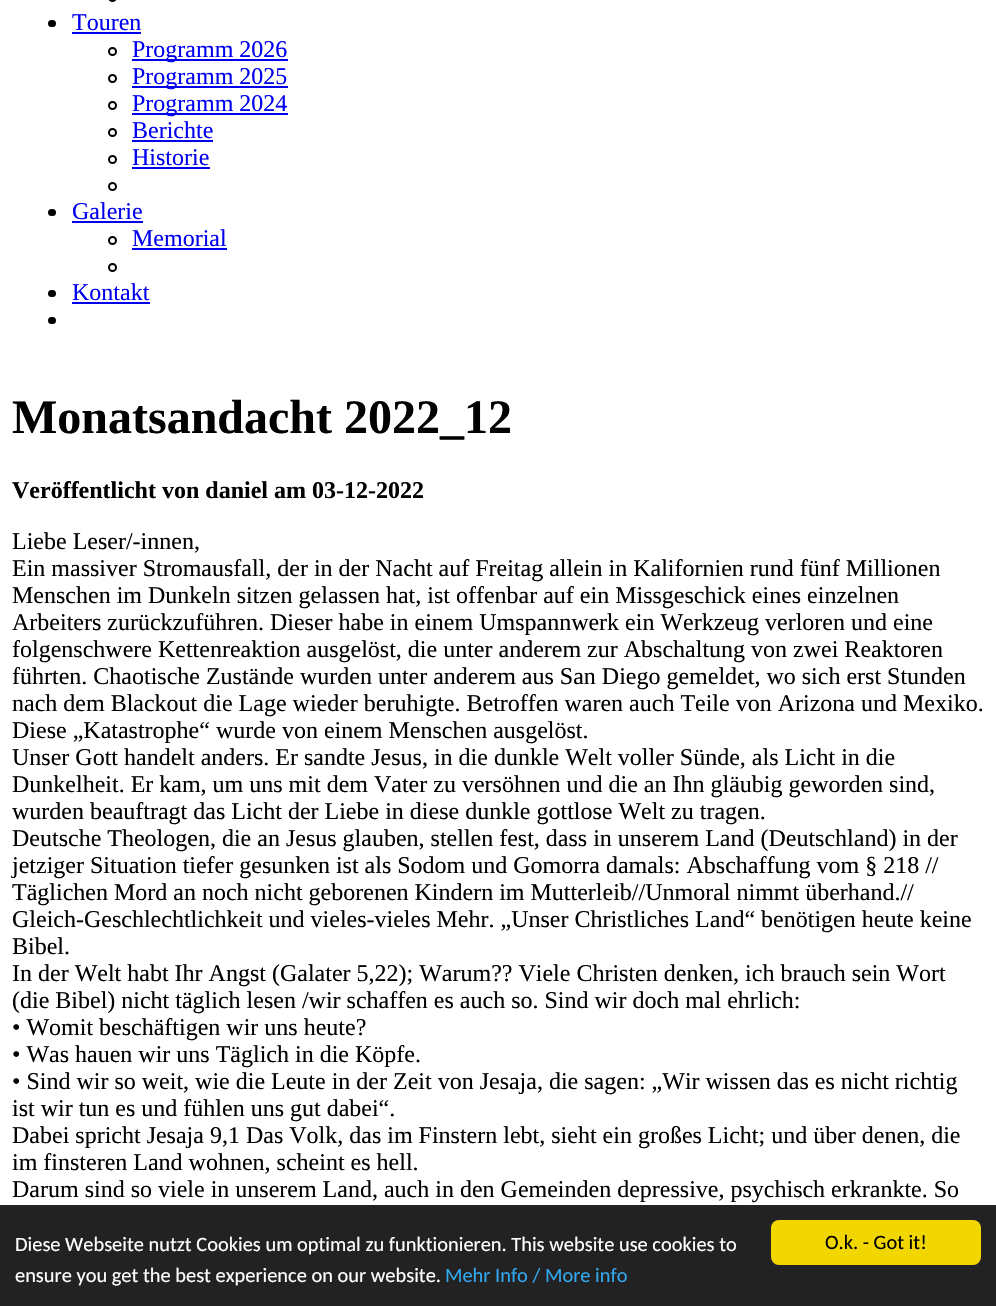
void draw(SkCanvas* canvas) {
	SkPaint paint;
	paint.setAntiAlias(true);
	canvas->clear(0xffffffff);
	paint.setStroke(true);
	paint.setStrokeWidth(2);
	paint.setColor(0xff000000);
	canvas->drawCircle(112.5, -2.5, 3.5, paint);
	paint.setStroke(false);
	canvas->drawRoundRect(SkRect::MakeXYWH(48, 20, 8, 7), 3.5, 3.5, paint);
	SkFont f1(fontMgr->matchFamilyStyle("Liberation Serif", SkFontStyle::Normal()), 24);
	f1.setSubpixel(true);
	paint.setColor(0xff0000ee);
	canvas->drawString("Touren", 72, 30, f1, paint);
	canvas->drawRect(SkRect::MakeXYWH(72, 32, 69, 2), paint);
	paint.setStroke(true);
	paint.setColor(0xff000000);
	canvas->drawCircle(112.5, 51.5, 3.5, paint);
	paint.setStroke(false);
	paint.setColor(0xff0000ee);
	canvas->drawRect(SkRect::MakeXYWH(132, 59, 156, 2), paint);
	canvas->drawString("Programm 2026", 132, 57, f1, paint);
	paint.setStroke(true);
	paint.setColor(0xff000000);
	canvas->drawCircle(112.5, 78.5, 3.5, paint);
	paint.setStroke(false);
	paint.setColor(0xff0000ee);
	canvas->drawRect(SkRect::MakeXYWH(132, 86, 156, 2), paint);
	canvas->drawString("Programm 2025", 132, 84, f1, paint);
	paint.setStroke(true);
	paint.setColor(0xff000000);
	canvas->drawCircle(112.5, 105.5, 3.5, paint);
	paint.setStroke(false);
	paint.setColor(0xff0000ee);
	canvas->drawRect(SkRect::MakeXYWH(132, 113, 156, 2), paint);
	canvas->drawString("Programm 2024", 132, 111, f1, paint);
	paint.setStroke(true);
	paint.setColor(0xff000000);
	canvas->drawCircle(112.5, 132.5, 3.5, paint);
	paint.setStroke(false);
	paint.setColor(0xff0000ee);
	canvas->drawString("Berichte", 132, 138, f1, paint);
	canvas->drawRect(SkRect::MakeXYWH(132, 140, 81, 2), paint);
	paint.setStroke(true);
	paint.setColor(0xff000000);
	canvas->drawCircle(112.5, 159.5, 3.5, paint);
	paint.setStroke(false);
	paint.setColor(0xff0000ee);
	canvas->drawString("Historie", 132, 165, f1, paint);
	canvas->drawRect(SkRect::MakeXYWH(132, 167, 78, 2), paint);
	paint.setStroke(true);
	paint.setColor(0xff000000);
	canvas->drawCircle(112.5, 186.5, 3.5, paint);
	paint.setStroke(false);
	canvas->drawRoundRect(SkRect::MakeXYWH(48, 209, 8, 7), 3.5, 3.5, paint);
	paint.setColor(0xff0000ee);
	canvas->drawString("Galerie", 72, 219, f1, paint);
	canvas->drawRect(SkRect::MakeXYWH(72, 221, 71, 2), paint);
	paint.setStroke(true);
	paint.setColor(0xff000000);
	canvas->drawCircle(112.5, 240.5, 3.5, paint);
	paint.setStroke(false);
	paint.setColor(0xff0000ee);
	canvas->drawString("Memorial", 132, 246, f1, paint);
	canvas->drawRect(SkRect::MakeXYWH(132, 248, 95, 2), paint);
	paint.setStroke(true);
	paint.setColor(0xff000000);
	canvas->drawCircle(112.5, 267.5, 3.5, paint);
	paint.setStroke(false);
	canvas->drawRoundRect(SkRect::MakeXYWH(48, 290, 8, 7), 3.5, 3.5, paint);
	paint.setColor(0xff0000ee);
	canvas->drawString("Kontakt", 72, 300, f1, paint);
	canvas->drawRect(SkRect::MakeXYWH(72, 302, 78, 2), paint);
	paint.setColor(0xff000000);
	canvas->drawRoundRect(SkRect::MakeXYWH(48, 317, 8, 7), 3.5, 3.5, paint);
	SkFont f2(fontMgr->matchFamilyStyle("Liberation Serif", SkFontStyle::Bold()), 48);
	f2.setSubpixel(true);
	canvas->drawString("Monatsandacht 2022_12", 12, 433, f2, paint);
	SkFont f3(fontMgr->matchFamilyStyle("Liberation Serif", SkFontStyle::Bold()), 24);
	f3.setSubpixel(true);
	canvas->drawString("Veröffentlicht von daniel am 03-12-2022", 12, 498, f3, paint);
	canvas->drawString("Liebe Leser/-innen,", 12, 549, f1, paint);
	canvas->drawString("Ein massiver Stromausfall, der in der Nacht auf Freitag allein in Kalifornien rund fünf Millionen", 12, 576, f1, paint);
	canvas->drawString("Menschen im Dunkeln sitzen gelassen hat, ist offenbar auf ein Missgeschick eines einzelnen", 12, 603, f1, paint);
	canvas->drawString("Arbeiters zurückzuführen. Dieser habe in einem Umspannwerk ein Werkzeug verloren und eine", 12, 630, f1, paint);
	canvas->drawString("folgenschwere Kettenreaktion ausgelöst, die unter anderem zur Abschaltung von zwei Reaktoren", 12, 657, f1, paint);
	canvas->drawString("führten. Chaotische Zustände wurden unter anderem aus San Diego gemeldet, wo sich erst Stunden", 12, 684, f1, paint);
	canvas->drawString("nach dem Blackout die Lage wieder beruhigte. Betroffen waren auch Teile von Arizona und Mexiko.", 12, 711, f1, paint);
	canvas->drawString("Diese „Katastrophe“ wurde von einem Menschen ausgelöst.", 12, 738, f1, paint);
	canvas->drawString("Unser Gott handelt anders. Er sandte Jesus, in die dunkle Welt voller Sünde, als Licht in die", 12, 765, f1, paint);
	canvas->drawString("Dunkelheit. Er kam, um uns mit dem Vater zu versöhnen und die an Ihn gläubig geworden sind,", 12, 792, f1, paint);
	canvas->drawString("wurden beauftragt das Licht der Liebe in diese dunkle gottlose Welt zu tragen.", 12, 819, f1, paint);
	canvas->drawString("Deutsche Theologen, die an Jesus glauben, stellen fest, dass in unserem Land (Deutschland) in der", 12, 846, f1, paint);
	canvas->drawString("jetziger Situation tiefer gesunken ist als Sodom und Gomorra damals: Abschaffung vom § 218 //", 12, 873, f1, paint);
	canvas->drawString("Täglichen Mord an noch nicht geborenen Kindern im Mutterleib//Unmoral nimmt überhand.//", 12, 900, f1, paint);
	canvas->drawString("Gleich-Geschlechtlichkeit und vieles-vieles Mehr. „Unser Christliches Land“ benötigen heute keine", 12, 927, f1, paint);
	canvas->drawString("Bibel.", 12, 954, f1, paint);
	canvas->drawString("In der Welt habt Ihr Angst (Galater 5,22); Warum?\077 Viele Christen denken, ich brauch sein Wort", 12, 981, f1, paint);
	canvas->drawString("(die Bibel) nicht täglich lesen /wir schaffen es auch so. Sind wir doch mal ehrlich:", 12, 1008, f1, paint);
	canvas->drawString("• Womit beschäftigen wir uns heute?", 12, 1035, f1, paint);
	canvas->drawString("• Was hauen wir uns Täglich in die Köpfe.", 12, 1062, f1, paint);
	canvas->drawString("• Sind wir so weit, wie die Leute in der Zeit von Jesaja, die sagen: „Wir wissen das es nicht richtig", 12, 1089, f1, paint);
	canvas->drawString("ist wir tun es und fühlen uns gut dabei“.", 12, 1116, f1, paint);
	canvas->drawString("Dabei spricht Jesaja 9,1 Das Volk, das im Finstern lebt, sieht ein großes Licht; und über denen, die", 12, 1143, f1, paint);
	canvas->drawString("im finsteren Land wohnen, scheint es hell.", 12, 1170, f1, paint);
	canvas->drawString("Darum sind so viele in unserem Land, auch in den Gemeinden depressive, psychisch erkrankte. So", 12, 1197, f1, paint);
	paint.setColor(0xff222222);
	canvas->drawRect(SkRect::MakeXYWH(0, 1205, 996, 101), paint);
	SkFont f4(fontMgr->matchFamilyStyle("Carlito", SkFontStyle::Normal()), 20.4);
	f4.setSubpixel(true);
	paint.setColor(0xffffffff);
	canvas->drawString("Diese Webseite nutzt Cookies um optimal zu funktionieren. This website use cookies to", 15, 1251, f4, paint);
	canvas->drawString("ensure you get the best experience on our website.", 15, 1282, f4, paint);
	paint.setColor(0xff31a8f0);
	canvas->drawString("Mehr Info / More info", 445, 1282, f4, paint);
	paint.setColor(0xfff1d600);
	canvas->drawRoundRect(SkRect::MakeXYWH(771, 1220, 210, 45), 8, 8, paint);
	paint.setColor(0xff000000);
	canvas->drawString("O.k. - Got it!", 825, 1249, f4, paint);
}
